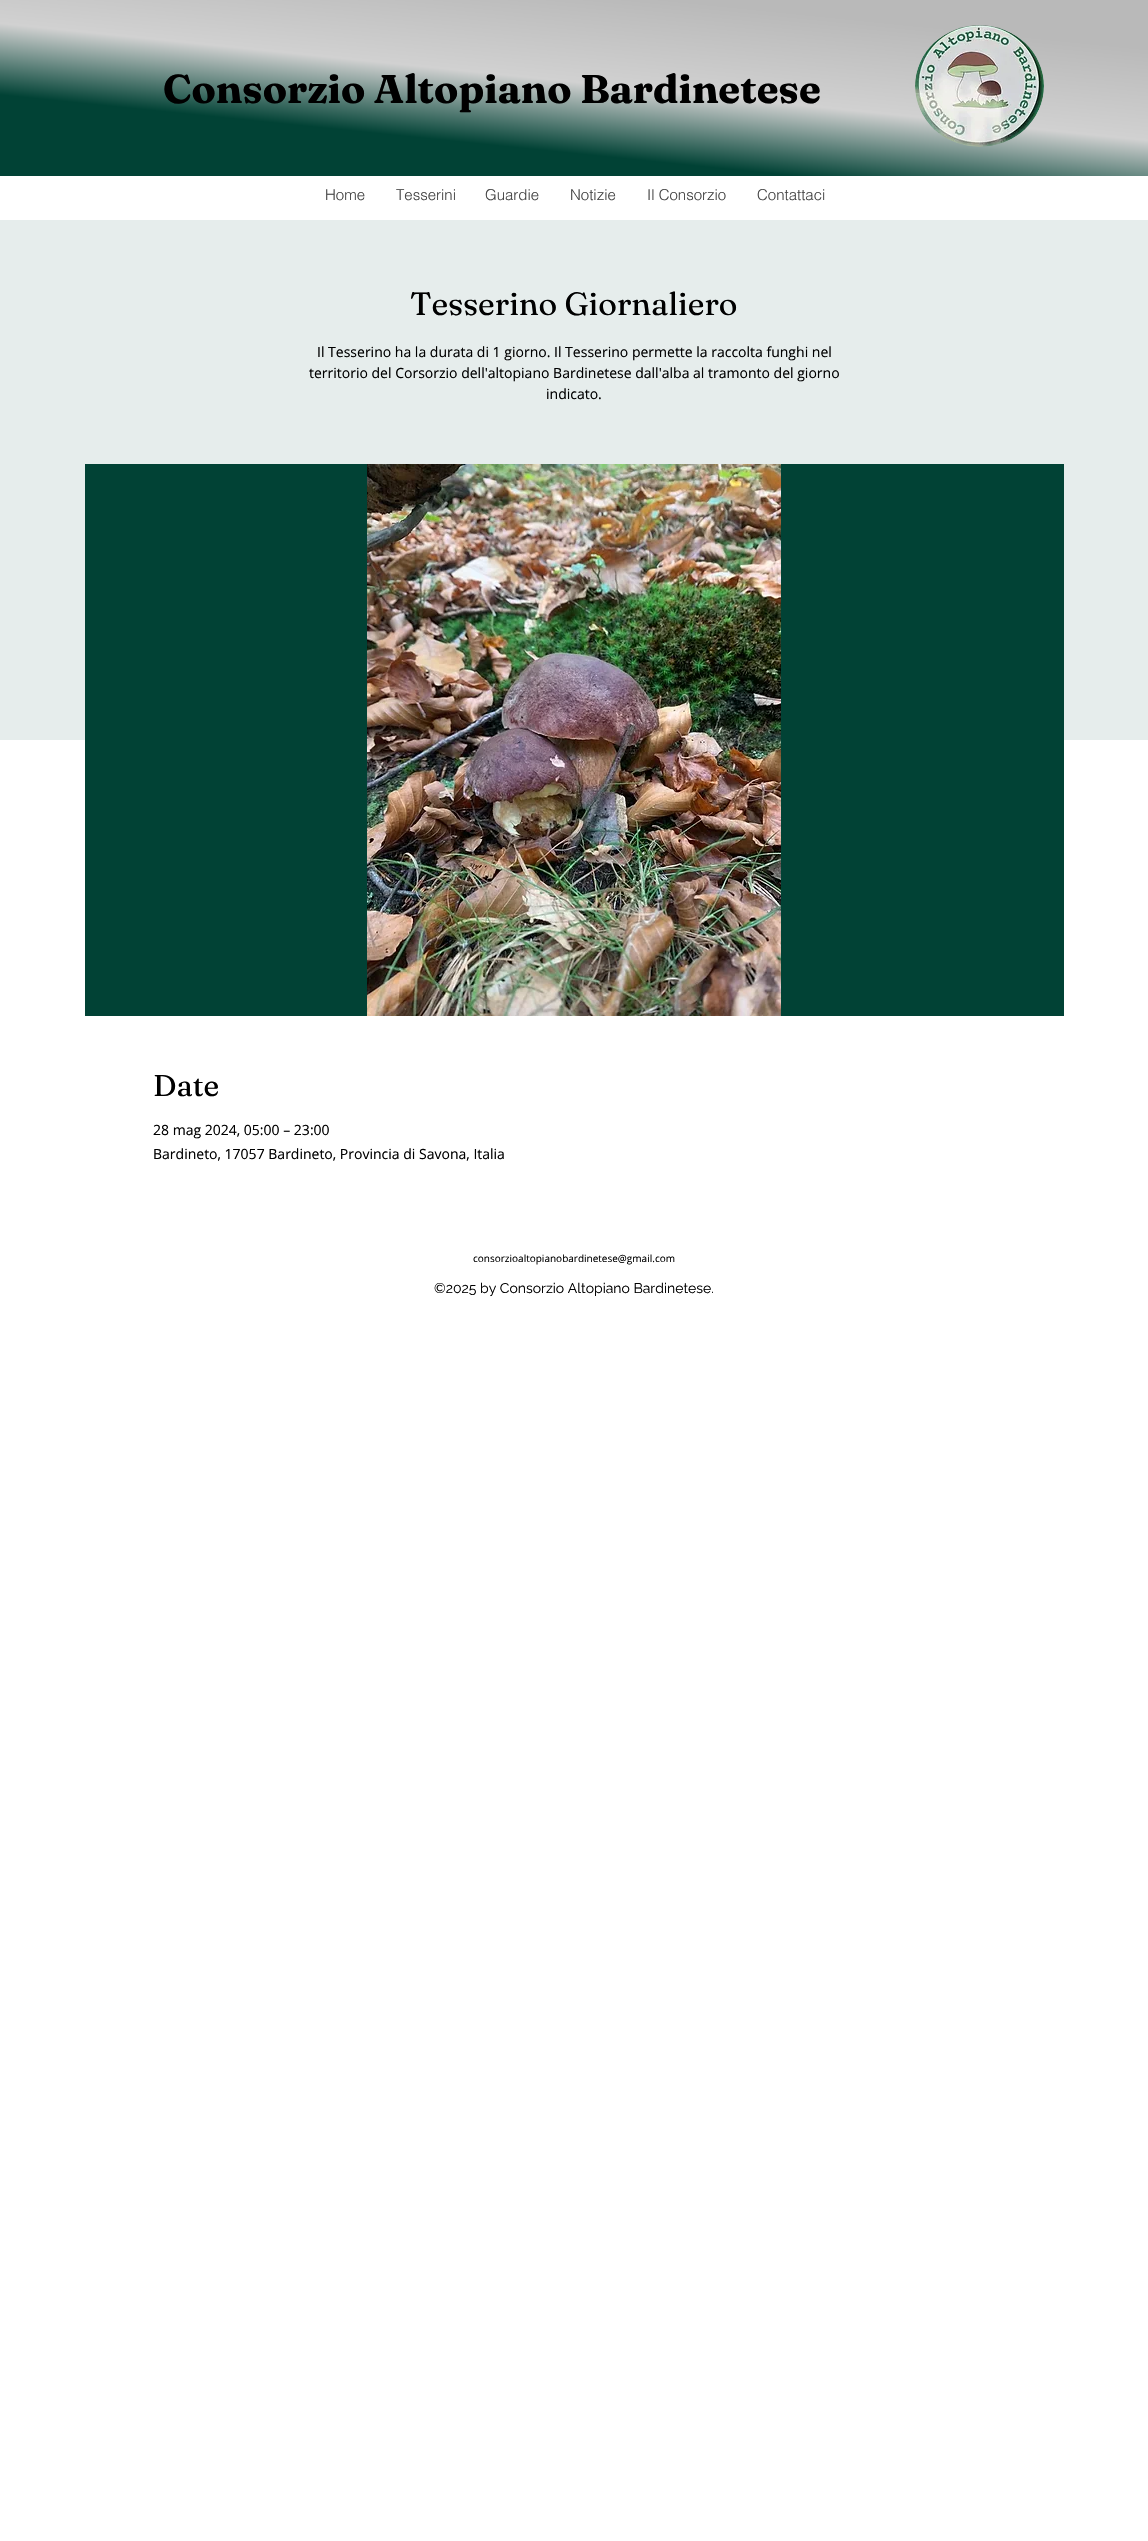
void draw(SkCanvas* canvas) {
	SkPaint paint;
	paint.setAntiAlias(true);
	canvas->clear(0xffffffff);
	{
		const SkColor colors[] = {0xffb9b9b9, 0xffd1d1d1, 0xff014235};
		const float stops[] = {0.17, 0.48, 0.72};
		const SkPoint ends[] = {{589, -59}, {559, 235}};
		paint.setShader(SkGradientShader::MakeLinear(ends, colors, stops, 3, SkTileMode::kClamp));
		paint.setAlpha(255);
	}
	canvas->drawRect(SkRect::MakeXYWH(0, 0, 1148, 176), paint);
	SkFont f1(fontMgr->matchFamilyStyle("Fraunces", SkFontStyle::Bold()), 40);
	f1.setSubpixel(true);
	paint.setShader(nullptr);
	paint.setColor(0xff000000);
	canvas->drawString("Consorzio Altopiano Bardinetese", 163, 103, f1, paint);
	canvas->drawImageRect(SkImages::DeferredFromEncodedData(SkData::MakeFromFileName("img1.png")), SkRect::MakeXYWH(915, 25, 129, 122), SkSamplingOptions());
	SkFont f2(fontMgr->matchFamilyStyle("helvetica", SkFontStyle(300, SkFontStyle::kNormal_Width, SkFontStyle::kUpright_Slant)), 15);
	f2.setSubpixel(true);
	paint.setColor(0xff444444);
	canvas->drawString("Home", 325, 200, f2, paint);
	canvas->drawString("Tesserini", 396, 200, f2, paint);
	canvas->drawString("Guardie", 485, 200, f2, paint);
	canvas->drawString("Notizie", 570, 200, f2, paint);
	canvas->drawString("Il Consorzio", 647, 200, f2, paint);
	canvas->drawString("Contattaci", 757, 200, f2, paint);
	paint.setColor(0xffe6edec);
	canvas->drawRect(SkRect::MakeXYWH(0, 220, 1148, 520), paint);
	SkFont f3(fontMgr->matchFamilyStyle("Fraunces", SkFontStyle::Normal()), 32);
	f3.setSubpixel(true);
	paint.setColor(0xff000000);
	canvas->drawString("Tesserino Giornaliero", 410, 315, f3, paint);
	SkFont f4(fontMgr->matchFamilyStyle("Open Sans", SkFontStyle::Normal()), 14);
	f4.setSubpixel(true);
	canvas->drawString("Il Tesserino ha la durata di 1 giorno. Il Tesserino permette la raccolta funghi nel", 317, 357, f4, paint);
	canvas->drawString("territorio del Corsorzio dell'altopiano Bardinetese dall'alba al tramonto del giorno", 309, 378, f4, paint);
	canvas->drawString("indicato.", 546, 399, f4, paint);
	paint.setColor(0xff014235);
	canvas->drawRect(SkRect::MakeXYWH(85, 464, 979, 552), paint);
	canvas->drawImageRect(SkImages::DeferredFromEncodedData(SkData::MakeFromFileName("img2.png")), SkRect::MakeXYWH(367, 464, 414, 552), SkSamplingOptions());
	SkFont f5(fontMgr->matchFamilyStyle("Fraunces", SkFontStyle::Normal()), 30);
	f5.setSubpixel(true);
	paint.setColor(0xff000000);
	canvas->drawString("Date", 153, 1096, f5, paint);
	canvas->drawString("28 mag 2024, 05:00 – 23:00", 153, 1135, f4, paint);
	canvas->drawString("Bardineto, 17057 Bardineto, Provincia di Savona, Italia", 153, 1159, f4, paint);
	SkFont f6(fontMgr->matchFamilyStyle("Open Sans", SkFontStyle::Normal()), 10);
	f6.setSubpixel(true);
	canvas->drawString("consorzioaltopianobardinetese@gmail.com", 473, 1262, f6, paint);
	SkFont f7(fontMgr->matchFamilyStyle("Raleway", SkFontStyle::Normal()), 14);
	f7.setSubpixel(true);
	canvas->drawString("©2025 by Consorzio Altopiano Bardinetese.", 434, 1293, f7, paint);
}
